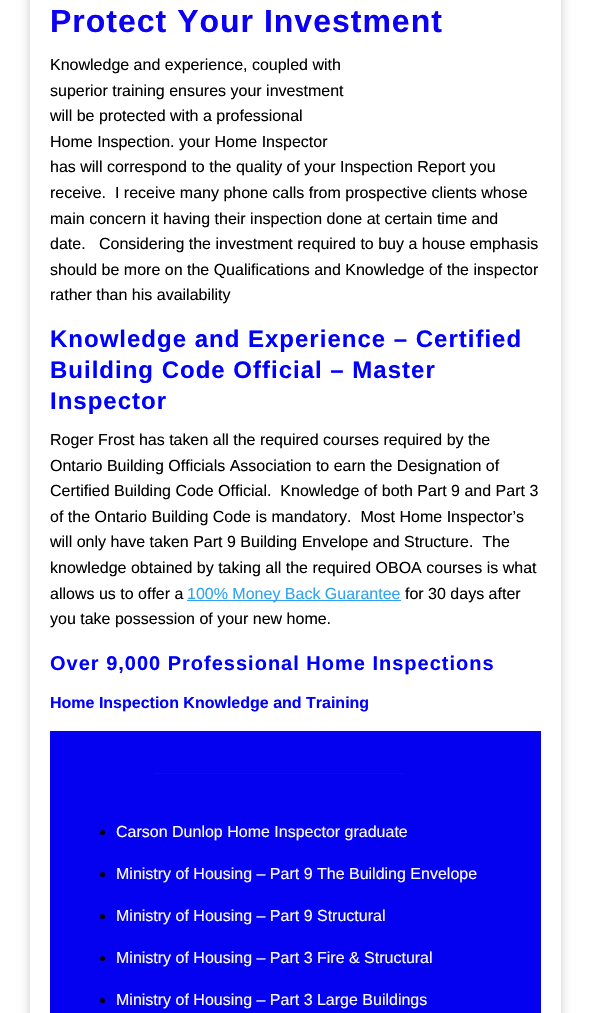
void draw(SkCanvas* canvas) {
	SkPaint paint;
	paint.setAntiAlias(true);
	auto spacedText = [&](const char* s, float x, float y, const SkFont& font, const SkPaint& ink, float letter, float word) {
		std::vector<SkGlyphID> glyphs(font.countText(s, strlen(s), SkTextEncoding::kUTF8));
		std::vector<float> xs(glyphs.size());
		font.textToGlyphs(s, strlen(s), SkTextEncoding::kUTF8, glyphs);
		font.getXPos(glyphs, xs, x);
		float extra = 0;
		for (size_t i = 0; i < glyphs.size(); i++) {
			xs[i] += extra;
			extra += letter + word * (glyphs[i] == font.unicharToGlyph(' '));
		}
		canvas->drawTextBlob(SkTextBlob::MakeFromPosHGlyphs(glyphs, xs, y, font), 0, 0, ink);
	};
	auto svgPath = [&](const char* data, bool evenOdd = false) {
		SkPath result = *SkParsePath::FromSVGString(data);
		if (evenOdd) result.setFillType(SkPathFillType::kEvenOdd);
		return result;
	};
	canvas->clear(0xffffffff);
	canvas->save();
	canvas->clipPath(svgPath("M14 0H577V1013H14ZM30-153H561V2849H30Z", true), true);
	paint.setColor(0x33000000);
	paint.setMaskFilter(SkMaskFilter::MakeBlur(kNormal_SkBlurStyle, 5));
	canvas->drawRect(SkRect::MakeXYWH(30, -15, 531, 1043), paint);
	paint.setMaskFilter(nullptr);
	canvas->restore();
	SkFont f1(fontMgr->matchFamilyStyle("Liberation Sans", SkFontStyle::Bold()), 32);
	f1.setSubpixel(true);
	paint.setColor(0xff0c00f4);
	spacedText("Protect Your Investment", 50, 32, f1, paint, 1, 0);
	SkFont f2(fontMgr->matchFamilyStyle("Liberation Sans", SkFontStyle::Normal()), 16);
	f2.setSubpixel(true);
	paint.setColor(0xff000000);
	canvas->drawString("Knowledge and experience, coupled with", 50, 70, f2, paint);
	canvas->drawString("superior training ensures your investment", 50, 96, f2, paint);
	canvas->drawString("will be protected with a professional", 50, 121, f2, paint);
	canvas->drawString("Home Inspection. your Home Inspector", 50, 147, f2, paint);
	canvas->drawString("has will correspond to the quality of your Inspection Report you", 50, 172, f2, paint);
	canvas->drawString("receive.  I receive many phone calls from prospective clients whose", 50, 198, f2, paint);
	canvas->drawString("main concern it having their inspection done at certain time and", 50, 224, f2, paint);
	canvas->drawString("date.   Considering the investment required to buy a house emphasis", 50, 249, f2, paint);
	canvas->drawString("should be more on the Qualifications and Knowledge of the inspector", 50, 275, f2, paint);
	canvas->drawString("rather than his availability", 50, 300, f2, paint);
	SkFont f3(fontMgr->matchFamilyStyle("Liberation Sans", SkFontStyle::Bold()), 24);
	f3.setSubpixel(true);
	paint.setColor(0xff0000ff);
	spacedText("Knowledge and Experience – Certified", 50, 347, f3, paint, 1, 0);
	spacedText("Building Code Official – Master", 50, 378, f3, paint, 1, 0);
	spacedText("Inspector", 50, 409, f3, paint, 1, 0);
	paint.setColor(0xff000000);
	canvas->drawString("Roger Frost has taken all the required courses required by the", 50, 445, f2, paint);
	canvas->drawString("Ontario Building Officials Association to earn the Designation of", 50, 471, f2, paint);
	canvas->drawString("Certified Building Code Official.  Knowledge of both Part 9 and Part 3", 50, 496, f2, paint);
	canvas->drawString("of the Ontario Building Code is mandatory.  Most Home Inspector’s", 50, 522, f2, paint);
	canvas->drawString("will only have taken Part 9 Building Envelope and Structure.  The", 50, 547, f2, paint);
	canvas->drawString("knowledge obtained by taking all the required OBOA courses is what", 50, 573, f2, paint);
	canvas->drawString("allows us to offer a", 50, 599, f2, paint);
	paint.setColor(0xff2ea3f2);
	canvas->drawRect(SkRect::MakeXYWH(187, 600, 214, 1), paint);
	canvas->drawString("100% Money Back Guarantee", 187, 599, f2, paint);
	paint.setColor(0xff000000);
	canvas->drawString("for 30 days after", 405, 599, f2, paint);
	canvas->drawString("you take possession of your new home.", 50, 624, f2, paint);
	SkFont f4(fontMgr->matchFamilyStyle("Liberation Sans", SkFontStyle::Bold()), 20);
	f4.setSubpixel(true);
	paint.setColor(0xff0000ff);
	spacedText("Over 9,000 Professional Home Inspections", 50, 670, f4, paint, 1, 0);
	SkFont f5(fontMgr->matchFamilyStyle("Liberation Sans", SkFontStyle::Bold()), 16);
	f5.setSubpixel(true);
	canvas->drawString("Home Inspection Knowledge and Training", 50, 708, f5, paint);
	paint.setColor(0xff0400f0);
	canvas->drawRect(SkRect::MakeXYWH(50, 731, 491, 282), paint);
	paint.setColor(0xff0e0ae2);
	canvas->drawRect(SkRect::MakeXYWH(154, 773, 250, 1), paint);
	paint.setColor(0xff000000);
	canvas->drawCircle(102.5, 832.5, 2.5, paint);
	paint.setColor(0xffffffff);
	canvas->drawString("Carson Dunlop Home Inspector graduate", 116, 837, f2, paint);
	paint.setColor(0xff000000);
	canvas->drawCircle(102.5, 874.5, 2.5, paint);
	paint.setColor(0xffffffff);
	canvas->drawString("Ministry of Housing – Part 9 The Building Envelope", 116, 879, f2, paint);
	paint.setColor(0xff000000);
	canvas->drawCircle(102.5, 916.5, 2.5, paint);
	paint.setColor(0xffffffff);
	canvas->drawString("Ministry of Housing – Part 9 Structural", 116, 921, f2, paint);
	paint.setColor(0xff000000);
	canvas->drawCircle(102.5, 958.5, 2.5, paint);
	paint.setColor(0xffffffff);
	canvas->drawString("Ministry of Housing – Part 3 Fire & Structural", 116, 963, f2, paint);
	paint.setColor(0xff000000);
	canvas->drawCircle(102.5, 1000.5, 2.5, paint);
	paint.setColor(0xffffffff);
	canvas->drawString("Ministry of Housing – Part 3 Large Buildings", 116, 1005, f2, paint);
}
